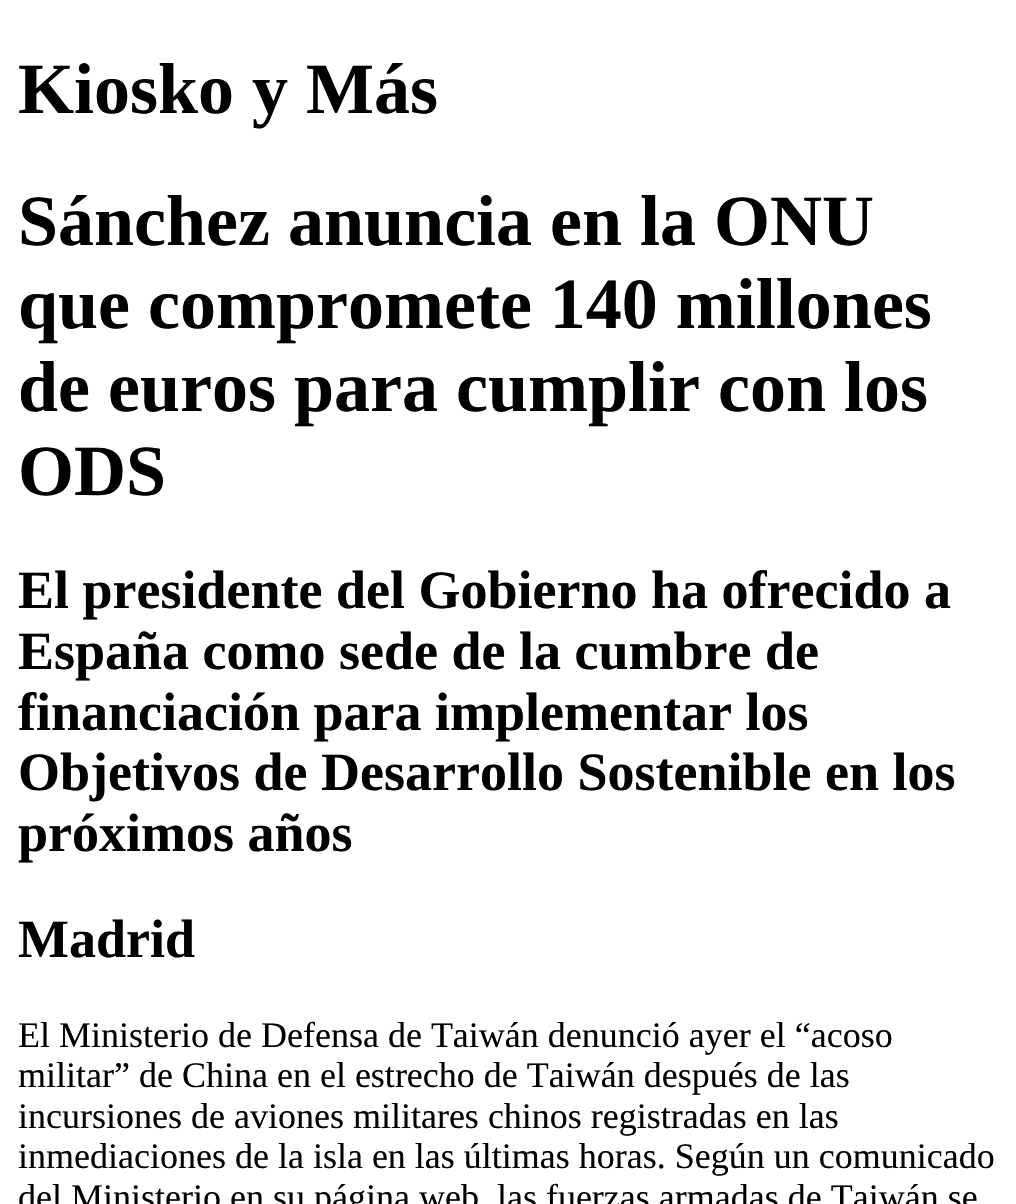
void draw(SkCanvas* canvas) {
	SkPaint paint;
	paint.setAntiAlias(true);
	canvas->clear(0xffffffff);
	SkFont f1(fontMgr->matchFamilyStyle("Liberation Serif", SkFontStyle::Bold()), 72);
	f1.setSubpixel(true);
	paint.setColor(0xff000000);
	canvas->drawString("Kiosko y Más", 18, 113, f1, paint);
	canvas->drawString("Sánchez anuncia en la ONU", 18, 245, f1, paint);
	canvas->drawString("que compromete 140 millones", 18, 328, f1, paint);
	canvas->drawString("de euros para cumplir con los", 18, 411, f1, paint);
	canvas->drawString("ODS", 18, 495, f1, paint);
	SkFont f2(fontMgr->matchFamilyStyle("Liberation Serif", SkFontStyle::Bold()), 54);
	f2.setSubpixel(true);
	canvas->drawString("El presidente del Gobierno ha ofrecido a", 18, 608, f2, paint);
	canvas->drawString("España como sede de la cumbre de", 18, 669, f2, paint);
	canvas->drawString("financiación para implementar los", 18, 730, f2, paint);
	canvas->drawString("Objetivos de Desarrollo Sostenible en los", 18, 790, f2, paint);
	canvas->drawString("próximos años", 18, 851, f2, paint);
	canvas->drawString("Madrid", 18, 957, f2, paint);
	SkFont f3(fontMgr->matchFamilyStyle("Liberation Serif", SkFontStyle::Normal()), 36);
	f3.setSubpixel(true);
	canvas->drawString("El Ministerio de Defensa de Taiwán denunció ayer el “acoso", 18, 1047, f3, paint);
	canvas->drawString("militar” de China en el estrecho de Taiwán después de las", 18, 1087, f3, paint);
	canvas->drawString("incursiones de aviones militares chinos registradas en las", 18, 1128, f3, paint);
	canvas->drawString("inmediaciones de la isla en las últimas horas. Según un comunicado", 18, 1168, f3, paint);
	canvas->drawString("del Ministerio en su página web, las fuerzas armadas de Taiwán se", 18, 1209, f3, paint);
}
